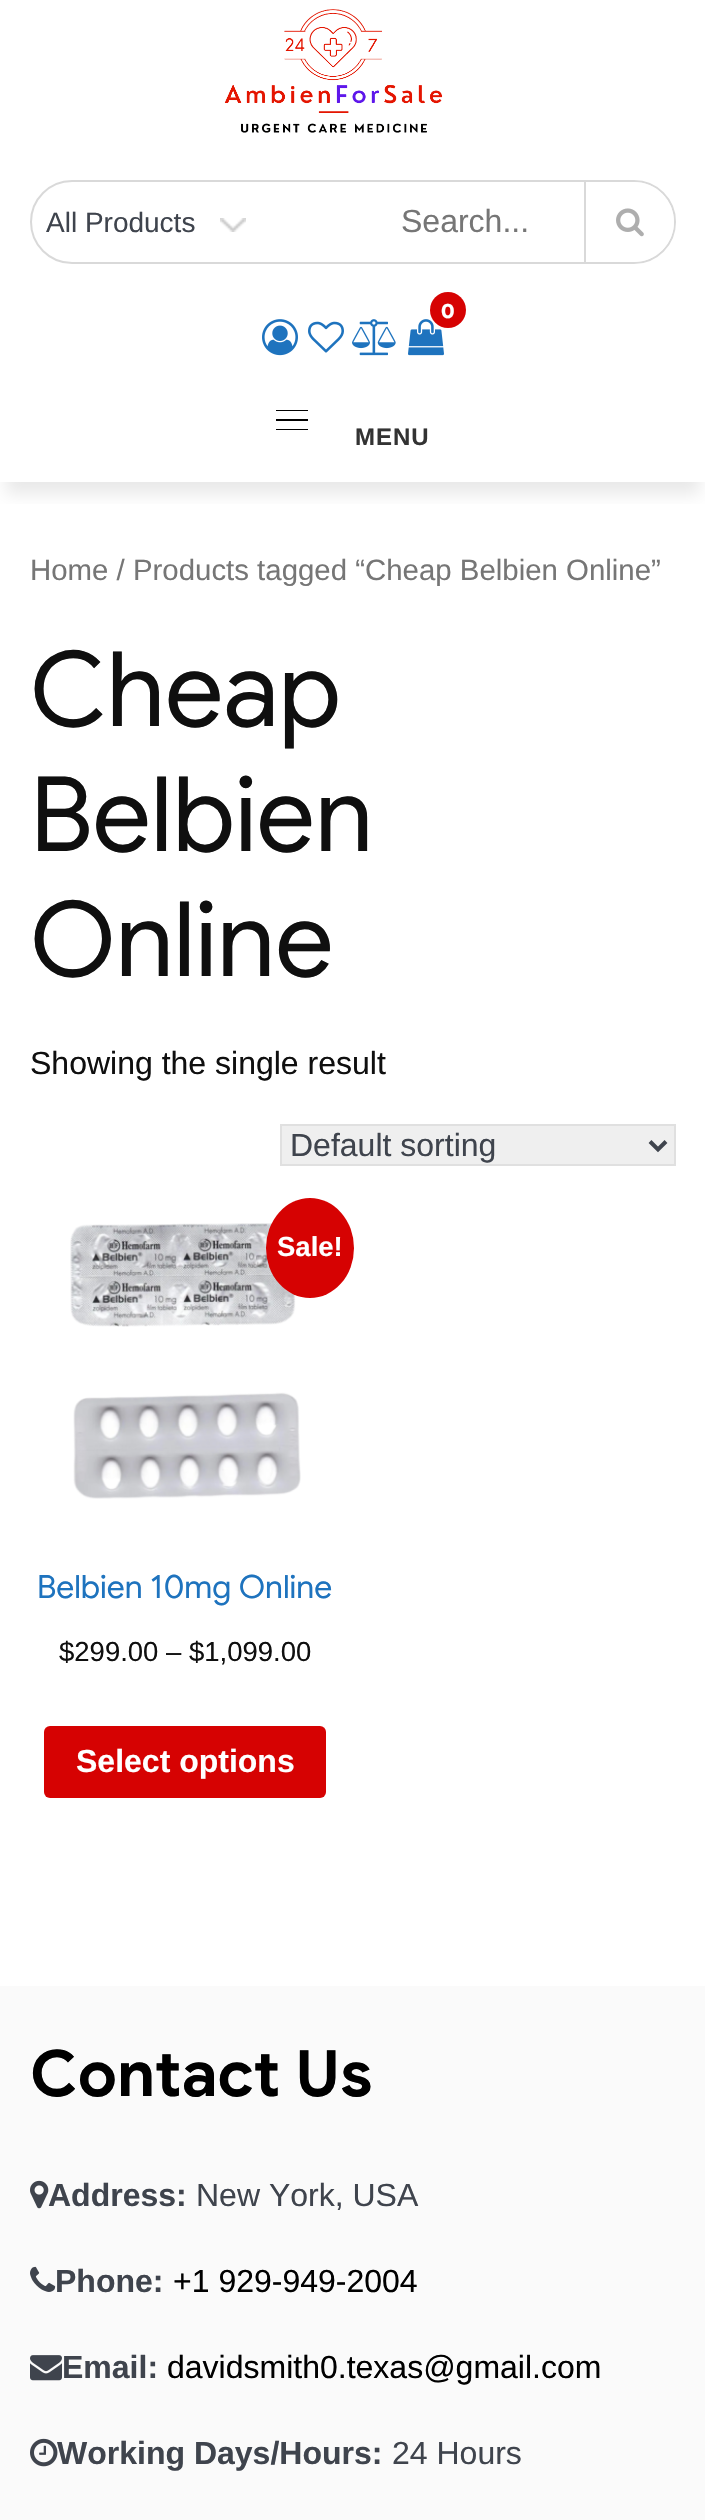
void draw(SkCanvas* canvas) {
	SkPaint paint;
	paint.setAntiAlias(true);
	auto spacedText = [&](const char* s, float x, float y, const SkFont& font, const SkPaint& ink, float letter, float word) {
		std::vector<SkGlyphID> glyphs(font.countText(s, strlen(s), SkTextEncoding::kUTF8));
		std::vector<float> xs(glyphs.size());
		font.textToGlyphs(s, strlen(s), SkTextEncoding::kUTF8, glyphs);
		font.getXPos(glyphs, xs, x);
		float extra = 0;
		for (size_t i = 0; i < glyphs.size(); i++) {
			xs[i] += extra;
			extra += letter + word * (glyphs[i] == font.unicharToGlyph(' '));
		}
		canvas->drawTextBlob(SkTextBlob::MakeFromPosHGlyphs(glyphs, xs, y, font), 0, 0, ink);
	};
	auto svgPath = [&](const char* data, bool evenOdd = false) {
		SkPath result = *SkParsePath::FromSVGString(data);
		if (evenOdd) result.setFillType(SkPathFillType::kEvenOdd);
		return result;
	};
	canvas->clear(0xffffffff);
	canvas->save();
	canvas->clipRect(SkRect::MakeXYWH(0, 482, 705, 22));
	paint.setColor(0x2e828282);
	paint.setMaskFilter(SkMaskFilter::MakeBlur(kNormal_SkBlurStyle, 8));
	canvas->drawRect(SkRect::MakeXYWH(6, 24, 694, 470), paint);
	paint.setMaskFilter(nullptr);
	canvas->restore();
	canvas->drawImageRect(SkImages::DeferredFromEncodedData(SkData::MakeFromFileName("img1.png")), SkRect::MakeXYWH(224, 9, 219, 124), SkSamplingOptions());
	paint.setStroke(true);
	paint.setStrokeWidth(2);
	paint.setColor(0xffd9d9d9);
	canvas->drawRoundRect(SkRect::MakeXYWH(31, 181, 644, 82), 41, 41, paint);
	canvas->drawImageRect(SkImages::DeferredFromEncodedData(SkData::MakeFromFileName("img2.png")), SkRect::MakeXYWH(220, 218, 26, 14), SkSamplingOptions());
	SkFont f1(fontMgr->matchFamilyStyle("Liberation Sans", SkFontStyle::Normal()), 28);
	f1.setSubpixel(true);
	paint.setStroke(false);
	paint.setColor(0xff3f444d);
	canvas->drawString("All Products", 46, 232, f1, paint);
	paint.setColor(0xffffffff);
	canvas->drawPath(svgPath("M256 182H634C656 182 674 200 674 222C674 244 656 262 634 262H256Z"), paint);
	SkFont f2(fontMgr->matchFamilyStyle("Liberation Sans", SkFontStyle::Normal()), 32);
	f2.setSubpixel(true);
	paint.setColor(0xff767676);
	canvas->drawString("Search...", 401, 232, f2, paint);
	paint.setColor(0xffd9d9d9);
	canvas->drawRect(SkRect::MakeXYWH(584, 182, 2, 80), paint);
	canvas->drawImageRect(SkImages::DeferredFromEncodedData(SkData::MakeFromFileName("img3.png")), SkRect::MakeXYWH(616, 208, 28, 29), SkSamplingOptions());
	canvas->drawImageRect(SkImages::DeferredFromEncodedData(SkData::MakeFromFileName("img4.png")), SkRect::MakeXYWH(408, 319, 36, 37), SkSamplingOptions());
	paint.setColor(0xffd60202);
	canvas->drawCircle(448, 310, 18, paint);
	SkFont f3(fontMgr->matchFamilyStyle("Montserrat", SkFontStyle::Bold()), 20);
	f3.setSubpixel(true);
	paint.setColor(0xffffffff);
	canvas->drawString("0", 441, 318, f3, paint);
	canvas->drawImageRect(SkImages::DeferredFromEncodedData(SkData::MakeFromFileName("img5.png")), SkRect::MakeXYWH(262, 319, 36, 37), SkSamplingOptions());
	canvas->drawImageRect(SkImages::DeferredFromEncodedData(SkData::MakeFromFileName("img6.png")), SkRect::MakeXYWH(308, 321, 36, 32), SkSamplingOptions());
	canvas->drawImageRect(SkImages::DeferredFromEncodedData(SkData::MakeFromFileName("img7.png")), SkRect::MakeXYWH(352, 319, 44, 37), SkSamplingOptions());
	paint.setColor(0xff000000);
	canvas->drawRect(SkRect::MakeXYWH(276, 410, 32, 1), paint);
	canvas->drawRect(SkRect::MakeXYWH(276, 419, 32, 2), paint);
	canvas->drawRect(SkRect::MakeXYWH(276, 429, 32, 1), paint);
	SkFont f4(fontMgr->matchFamilyStyle("Liberation Sans", SkFontStyle::Bold()), 24);
	f4.setSubpixel(true);
	paint.setColor(0xff333333);
	spacedText("MENU", 355, 445, f4, paint, 1, 0);
	SkFont f5(fontMgr->matchFamilyStyle("Liberation Sans", SkFontStyle::Normal()), 29.4);
	f5.setSubpixel(true);
	paint.setColor(0xff767676);
	canvas->drawString("Home / Products tagged “Cheap Belbien Online”", 30, 580, f5, paint);
	SkFont f6(fontMgr->matchFamilyStyle("Google Sans", SkFontStyle::Normal()), 104);
	f6.setSubpixel(true);
	paint.setColor(0xff0f0f0f);
	canvas->drawString("Cheap", 30, 726, f6, paint);
	canvas->drawString("Belbien", 30, 851, f6, paint);
	canvas->drawString("Online", 30, 976, f6, paint);
	canvas->drawString("Showing the single result", 30, 1074, f2, paint);
	paint.setColor(0xffefefef);
	canvas->drawRect(SkRect::MakeXYWH(281, 1125, 394, 40), paint);
	paint.setStroke(true);
	paint.setColor(0xffe0e0e0);
	canvas->drawRect(SkRect::MakeXYWH(281, 1125, 394, 40), paint);
	paint.setStrokeWidth(4);
	paint.setColor(0xff3f444d);
	canvas->drawPath(svgPath("M650 1141.5L658 1149.5L666 1141.5"), paint);
	paint.setStroke(false);
	canvas->drawString("Default sorting", 290, 1156, f2, paint);
	canvas->drawImageRect(SkImages::DeferredFromEncodedData(SkData::MakeFromFileName("img8.png")), SkRect::MakeXYWH(70, 1223, 231, 276), SkSamplingOptions());
	paint.setColor(0xffd60202);
	canvas->drawOval(SkRect::MakeXYWH(266, 1198, 88, 100), paint);
	SkFont f7(fontMgr->matchFamilyStyle("Liberation Sans", SkFontStyle::Bold()), 27.5);
	f7.setSubpixel(true);
	paint.setColor(0xffffffff);
	canvas->drawString("Sale!", 277, 1256, f7, paint);
	SkFont f8(fontMgr->matchFamilyStyle("Google Sans", SkFontStyle::Normal()), 32);
	f8.setSubpixel(true);
	paint.setColor(0xff1e73be);
	canvas->drawString("Belbien 10mg Online", 37, 1598, f8, paint);
	SkFont f9(fontMgr->matchFamilyStyle("Liberation Sans", SkFontStyle::Normal()), 27.5);
	f9.setSubpixel(true);
	paint.setColor(0xff0f0f0f);
	canvas->drawString("$299.00 – $1,099.00", 59, 1661, f9, paint);
	paint.setColor(0xffd60202);
	canvas->drawRoundRect(SkRect::MakeXYWH(44, 1726, 282, 72), 6, 6, paint);
	SkFont f10(fontMgr->matchFamilyStyle("Liberation Sans", SkFontStyle::Bold()), 32);
	f10.setSubpixel(true);
	paint.setColor(0xffffffff);
	canvas->drawString("Select options", 76, 1772, f10, paint);
	paint.setColor(0xfffafafa);
	canvas->drawRect(SkRect::MakeXYWH(0, 1986, 705, 534), paint);
	SkFont f11(fontMgr->matchFamilyStyle("Google Sans", SkFontStyle::Bold()), 64);
	f11.setSubpixel(true);
	paint.setColor(0xff000000);
	canvas->drawString("Contact Us", 30, 2096, f11, paint);
	canvas->drawImageRect(SkImages::DeferredFromEncodedData(SkData::MakeFromFileName("img9.png")), SkRect::MakeXYWH(30, 2180, 19, 29), SkSamplingOptions());
	paint.setColor(0xff3f444d);
	canvas->drawString("Address:", 48, 2206, f10, paint);
	canvas->drawString("New York, USA", 196, 2206, f2, paint);
	canvas->drawImageRect(SkImages::DeferredFromEncodedData(SkData::MakeFromFileName("img10.png")), SkRect::MakeXYWH(30, 2266, 26, 26), SkSamplingOptions());
	canvas->drawString("Phone:", 55, 2292, f10, paint);
	paint.setColor(0xff000000);
	canvas->drawString("+1 929-949-2004", 173, 2292, f2, paint);
	canvas->drawImageRect(SkImages::DeferredFromEncodedData(SkData::MakeFromFileName("img11.png")), SkRect::MakeXYWH(30, 2355, 32, 26), SkSamplingOptions());
	paint.setColor(0xff3f444d);
	canvas->drawString("Email:", 62, 2378, f10, paint);
	paint.setColor(0xff000000);
	canvas->drawString("davidsmith0.texas@gmail.com", 167, 2378, f2, paint);
	canvas->drawImageRect(SkImages::DeferredFromEncodedData(SkData::MakeFromFileName("img12.png")), SkRect::MakeXYWH(30, 2438, 28, 29), SkSamplingOptions());
	paint.setColor(0xff3f444d);
	canvas->drawString("Working Days/Hours:", 57, 2464, f10, paint);
	canvas->drawString("24 Hours", 392, 2464, f2, paint);
}
